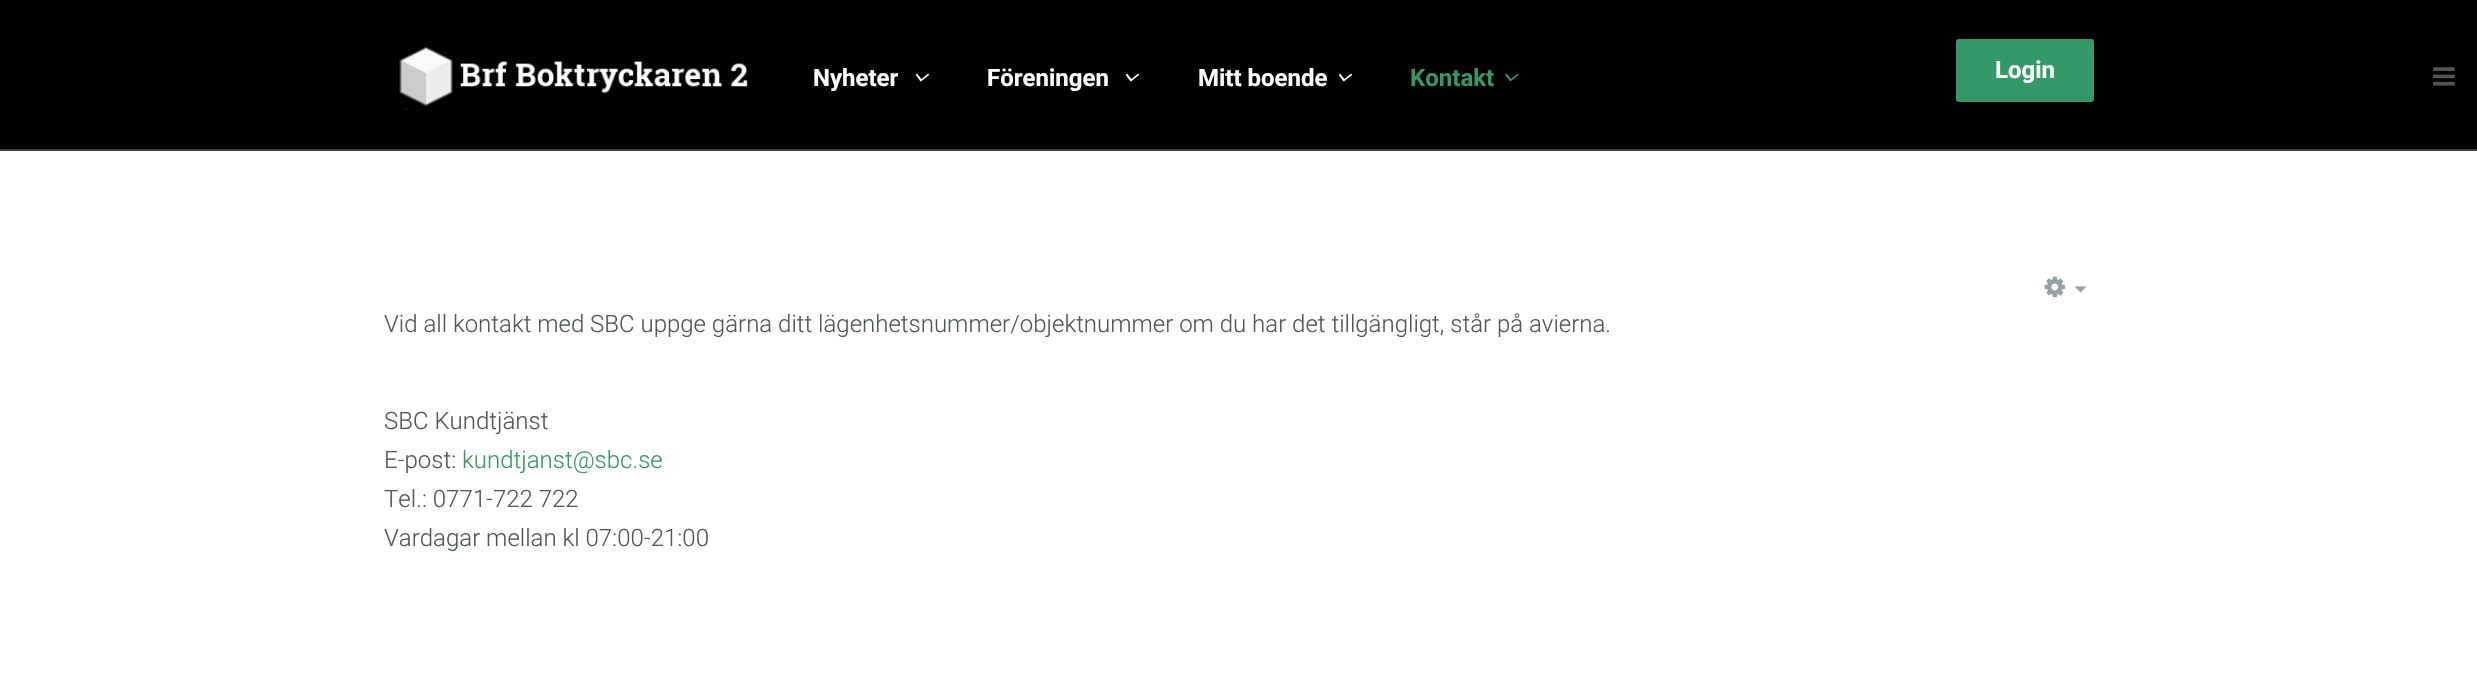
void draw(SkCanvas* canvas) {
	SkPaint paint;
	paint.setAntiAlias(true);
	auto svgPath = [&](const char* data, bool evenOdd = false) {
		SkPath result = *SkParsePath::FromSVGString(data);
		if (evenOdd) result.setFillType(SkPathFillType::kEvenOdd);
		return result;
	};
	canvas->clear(0xffffffff);
	paint.setColor(0xff000000);
	canvas->drawRect(SkRect::MakeXYWH(0, 0, 2477, 149), paint);
	paint.setColor(0xff3d4045);
	canvas->drawRect(SkRect::MakeXYWH(0, 149, 2477, 2), paint);
	canvas->drawImageRect(SkImages::DeferredFromEncodedData(SkData::MakeFromFileName("img1.png")), SkRect::MakeXYWH(399, 46, 349, 64), SkSamplingOptions());
	SkFont f1(fontMgr->matchFamilyStyle("Roboto", SkFontStyle::Bold()), 24);
	f1.setSubpixel(true);
	paint.setColor(0xffffffff);
	canvas->drawString("Nyheter", 813, 86, f1, paint);
	canvas->drawImageRect(SkImages::DeferredFromEncodedData(SkData::MakeFromFileName("img2.png")), SkRect::MakeXYWH(915, 73, 14, 9), SkSamplingOptions());
	canvas->drawString("Föreningen", 987, 86, f1, paint);
	canvas->drawImageRect(SkImages::DeferredFromEncodedData(SkData::MakeFromFileName("img2.png")), SkRect::MakeXYWH(1125, 73, 14, 9), SkSamplingOptions());
	canvas->drawString("Mitt boende", 1198, 86, f1, paint);
	canvas->drawImageRect(SkImages::DeferredFromEncodedData(SkData::MakeFromFileName("img2.png")), SkRect::MakeXYWH(1338, 73, 14, 9), SkSamplingOptions());
	paint.setColor(0xff339966);
	canvas->drawString("Kontakt", 1410, 86, f1, paint);
	canvas->drawImageRect(SkImages::DeferredFromEncodedData(SkData::MakeFromFileName("img3.png")), SkRect::MakeXYWH(1505, 73, 14, 9), SkSamplingOptions());
	canvas->drawRoundRect(SkRect::MakeXYWH(1956, 39, 138, 63), 3, 3, paint);
	paint.setColor(0xffffffff);
	canvas->drawString("Login", 1995, 78, f1, paint);
	canvas->drawImageRect(SkImages::DeferredFromEncodedData(SkData::MakeFromFileName("img4.png")), SkRect::MakeXYWH(2433, 67, 22, 19), SkSamplingOptions());
	canvas->drawImageRect(SkImages::DeferredFromEncodedData(SkData::MakeFromFileName("img5.png")), SkRect::MakeXYWH(2044, 276, 22, 22), SkSamplingOptions());
	paint.setColor(0xff96a1a3);
	canvas->drawPath(svgPath("M2074.5 286.5H2086.5L2080.5 292.5Z"), paint);
	SkFont f2(fontMgr->matchFamilyStyle("Roboto", SkFontStyle(300, SkFontStyle::kNormal_Width, SkFontStyle::kUpright_Slant)), 24);
	f2.setSubpixel(true);
	paint.setColor(0xff505656);
	canvas->drawString("Vid all kontakt med SBC uppge gärna ditt lägenhetsnummer/objektnummer om du har det tillgängligt, står på avierna.", 384, 332, f2, paint);
	canvas->drawString("SBC Kundtjänst", 384, 429, f2, paint);
	canvas->drawString("E-post:", 384, 468, f2, paint);
	paint.setColor(0xff339966);
	canvas->drawString("kundtjanst@sbc.se", 462, 468, f2, paint);
	paint.setColor(0xff505656);
	canvas->drawString("Tel.: 0771-722 722", 384, 507, f2, paint);
	canvas->drawString("Vardagar mellan kl 07:00-21:00", 384, 546, f2, paint);
}
